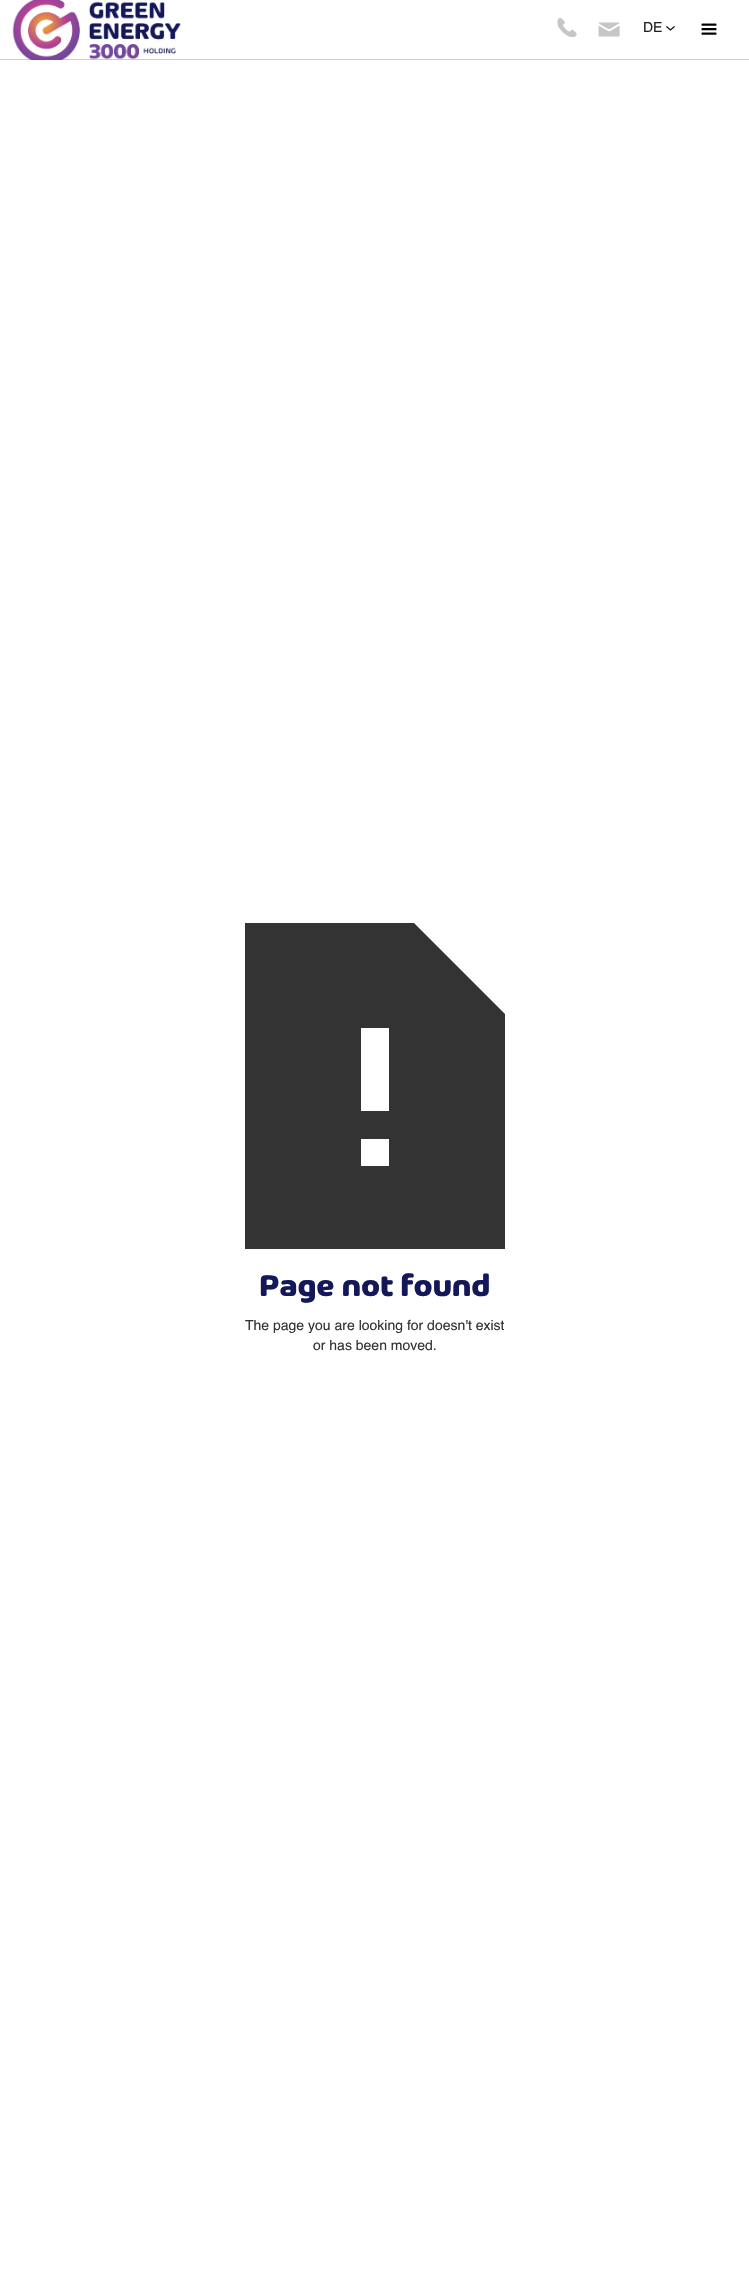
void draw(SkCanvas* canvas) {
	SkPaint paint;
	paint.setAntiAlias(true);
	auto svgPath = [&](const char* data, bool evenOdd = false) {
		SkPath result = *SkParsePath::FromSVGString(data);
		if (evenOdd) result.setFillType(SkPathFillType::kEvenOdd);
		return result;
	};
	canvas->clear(0xffffffff);
	paint.setColor(0xffcfcfcf);
	canvas->drawRect(SkRect::MakeXYWH(0, 59, 749, 1), paint);
	canvas->drawImageRect(SkImages::DeferredFromEncodedData(SkData::MakeFromFileName("img1.png")), SkRect::MakeXYWH(12, 0, 169, 60), SkSamplingOptions());
	canvas->drawImageRect(SkImages::DeferredFromEncodedData(SkData::MakeFromFileName("img2.png")), SkRect::MakeXYWH(557, 18, 20, 19), SkSamplingOptions());
	canvas->drawImageRect(SkImages::DeferredFromEncodedData(SkData::MakeFromFileName("img3.png")), SkRect::MakeXYWH(598, 22, 22, 15), SkSamplingOptions());
	canvas->drawImageRect(SkImages::DeferredFromEncodedData(SkData::MakeFromFileName("img4.png")), SkRect::MakeXYWH(666, 26, 9, 5), SkSamplingOptions());
	SkFont f1(fontMgr->matchFamilyStyle("Helvetica", SkFontStyle::Normal()), 14);
	f1.setSubpixel(true);
	paint.setColor(0xff222222);
	canvas->drawString("DE", 643, 32, f1, paint);
	canvas->drawImageRect(SkImages::DeferredFromEncodedData(SkData::MakeFromFileName("img5.png")), SkRect::MakeXYWH(701, 23, 16, 12), SkSamplingOptions());
	paint.setColor(0xff333333);
	canvas->drawPath(svgPath("M245 923H414L505 1014V1249H245ZM361 1028H389V1111H361ZM361 1139H389V1166H361Z", true), paint);
	SkFont f2(fontMgr->matchFamilyStyle("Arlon", SkFontStyle::Bold()), 32);
	f2.setSubpixel(true);
	paint.setColor(0xff151858);
	canvas->drawString("Page not found", 259, 1296, f2, paint);
	paint.setColor(0xff333333);
	canvas->drawString("The page you are looking for doesn't exist", 245, 1330, f1, paint);
	canvas->drawString("or has been moved.", 313, 1350, f1, paint);
}
